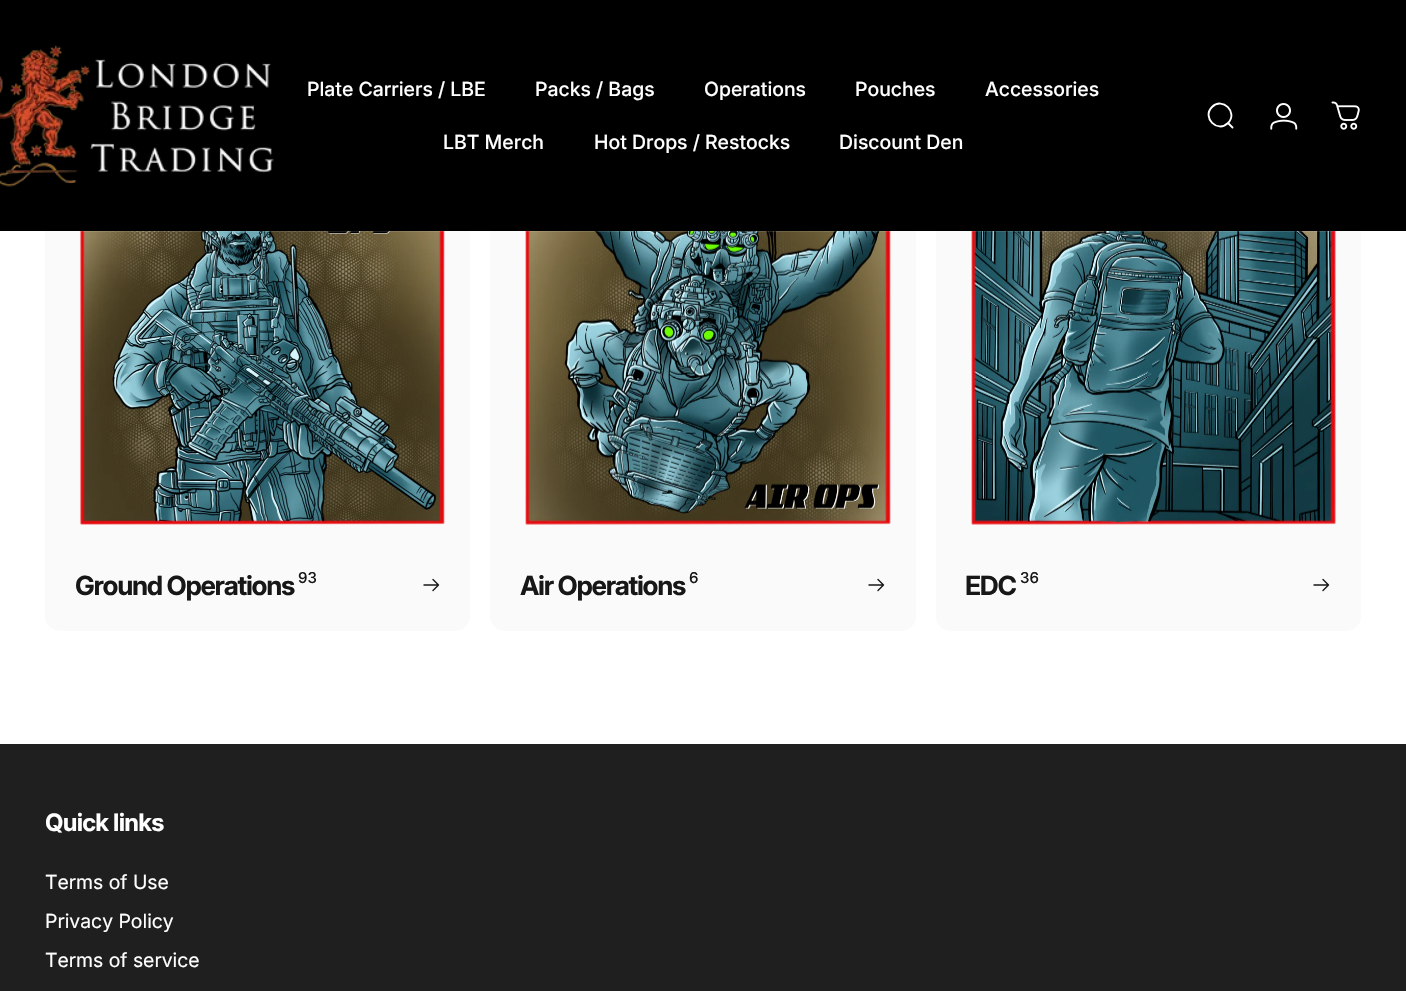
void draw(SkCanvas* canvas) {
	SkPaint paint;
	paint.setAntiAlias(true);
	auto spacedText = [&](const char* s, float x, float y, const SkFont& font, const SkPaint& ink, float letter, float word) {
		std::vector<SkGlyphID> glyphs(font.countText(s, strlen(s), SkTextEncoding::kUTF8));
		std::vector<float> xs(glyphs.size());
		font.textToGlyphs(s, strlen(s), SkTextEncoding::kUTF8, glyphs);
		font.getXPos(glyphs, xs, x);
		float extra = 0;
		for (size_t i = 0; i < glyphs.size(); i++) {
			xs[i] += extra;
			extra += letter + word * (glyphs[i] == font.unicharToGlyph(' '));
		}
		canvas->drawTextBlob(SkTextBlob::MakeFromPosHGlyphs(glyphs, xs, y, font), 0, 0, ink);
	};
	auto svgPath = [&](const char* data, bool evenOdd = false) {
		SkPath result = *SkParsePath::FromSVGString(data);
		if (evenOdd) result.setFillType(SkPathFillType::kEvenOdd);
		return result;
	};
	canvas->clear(0xff1f1f1f);
	paint.setColor(0xffffffff);
	canvas->drawRect(SkRect::MakeXYWH(0, 231, 1406, 513), paint);
	paint.setColor(0xfffafafa);
	canvas->drawRoundRect(SkRect::MakeXYWH(45, 123, 425, 508), 15, 15, paint);
	canvas->drawRoundRect(SkRect::MakeXYWH(490, 123, 426, 508), 15, 15, paint);
	canvas->drawRoundRect(SkRect::MakeXYWH(936, 123, 425, 508), 15, 15, paint);
	paint.setColor(0xff000000);
	canvas->drawRect(SkRect::MakeXYWH(0, 0, 1406, 231), paint);
	canvas->drawImageRect(SkImages::DeferredFromEncodedData(SkData::MakeFromFileName("img1.png")), SkRect::MakeXYWH(0, 45, 274, 142), SkSamplingOptions());
	SkFont f1(fontMgr->matchFamilyStyle("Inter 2", SkFontStyle(500, SkFontStyle::kNormal_Width, SkFontStyle::kUpright_Slant)), 19.5);
	f1.setSubpixel(true);
	paint.setColor(0xffffffff);
	canvas->drawString("Plate Carriers / LBE", 307, 96, f1, paint);
	canvas->drawString("Packs / Bags", 535, 96, f1, paint);
	canvas->drawString("Operations", 704, 96, f1, paint);
	canvas->drawString("Pouches", 855, 96, f1, paint);
	canvas->drawString("Accessories", 985, 96, f1, paint);
	canvas->drawString("LBT Merch", 443, 149, f1, paint);
	canvas->drawString("Hot Drops / Restocks", 594, 149, f1, paint);
	canvas->drawString("Discount Den", 839, 149, f1, paint);
	paint.setStroke(true);
	paint.setStrokeWidth(1.9);
	paint.setStrokeCap(SkPaint::kRound_Cap);
	canvas->drawPath(svgPath("M1232.5 127.5L1228 123M1228 123C1238.5 112.5 1222.5 96.5 1212 107C1201.5 117.5 1217.5 133.5 1228 123Z"), paint);
	canvas->drawImageRect(SkImages::DeferredFromEncodedData(SkData::MakeFromFileName("img2.png")), SkRect::MakeXYWH(1270, 103, 28, 27), SkSamplingOptions());
	canvas->drawImageRect(SkImages::DeferredFromEncodedData(SkData::MakeFromFileName("img3.png")), SkRect::MakeXYWH(1331, 101, 29, 29), SkSamplingOptions());
	canvas->drawImageRect(SkImages::DeferredFromEncodedData(SkData::MakeFromFileName("img4.png")), SkRect::MakeXYWH(80, 231, 365, 294), SkSamplingOptions());
	canvas->drawImageRect(SkImages::DeferredFromEncodedData(SkData::MakeFromFileName("img5.png")), SkRect::MakeXYWH(525, 231, 366, 294), SkSamplingOptions());
	canvas->drawImageRect(SkImages::DeferredFromEncodedData(SkData::MakeFromFileName("img6.png")), SkRect::MakeXYWH(971, 231, 365, 294), SkSamplingOptions());
	paint.setStroke(false);
	paint.setColor(0x1cffffff);
	canvas->drawRect(SkRect::MakeXYWH(80, 231, 1256, 1), paint);
	SkFont f2(fontMgr->matchFamilyStyle("Inter 2", SkFontStyle::Bold()), 26.5);
	f2.setSubpixel(true);
	paint.setColor(0xff171717);
	spacedText("Ground Operations", 75, 595, f2, paint, -1.3, 0);
	SkFont f3(fontMgr->matchFamilyStyle("Inter", SkFontStyle(500, SkFontStyle::kNormal_Width, SkFontStyle::kUpright_Slant)), 15);
	f3.setSubpixel(true);
	canvas->drawString("93", 298, 583, f3, paint);
	paint.setStroke(true);
	paint.setStrokeWidth(1.4);
	paint.setStrokeJoin(SkPaint::kRound_Join);
	canvas->drawPath(svgPath("M424 585H438.5M438.5 585L433 579.5M438.5 585L433 590.5"), paint);
	paint.setStroke(false);
	spacedText("Air Operations", 520, 595, f2, paint, -1.3, 0);
	canvas->drawString("6", 689, 583, f3, paint);
	paint.setStroke(true);
	canvas->drawPath(svgPath("M869 585H883.5M883.5 585L878 579.5M883.5 585L878 590.5"), paint);
	paint.setStroke(false);
	spacedText("EDC", 965, 595, f2, paint, -1.3, 0);
	canvas->drawString("36", 1020, 583, f3, paint);
	paint.setStroke(true);
	canvas->drawPath(svgPath("M1314 585H1328.5M1328.5 585L1323 579.5M1328.5 585L1323 590.5"), paint);
	SkFont f4(fontMgr->matchFamilyStyle("Inter", SkFontStyle::Bold()), 24);
	f4.setSubpixel(true);
	paint.setStroke(false);
	paint.setColor(0xffffffff);
	spacedText("Quick links", 45, 831, f4, paint, -0.75, 0);
	SkFont f5(fontMgr->matchFamilyStyle("Inter", SkFontStyle::Normal()), 19.5);
	f5.setSubpixel(true);
	canvas->drawString("Terms of Use", 45, 889, f5, paint);
	canvas->drawString("Privacy Policy", 45, 928, f5, paint);
	canvas->drawString("Terms of service", 45, 967, f5, paint);
}
